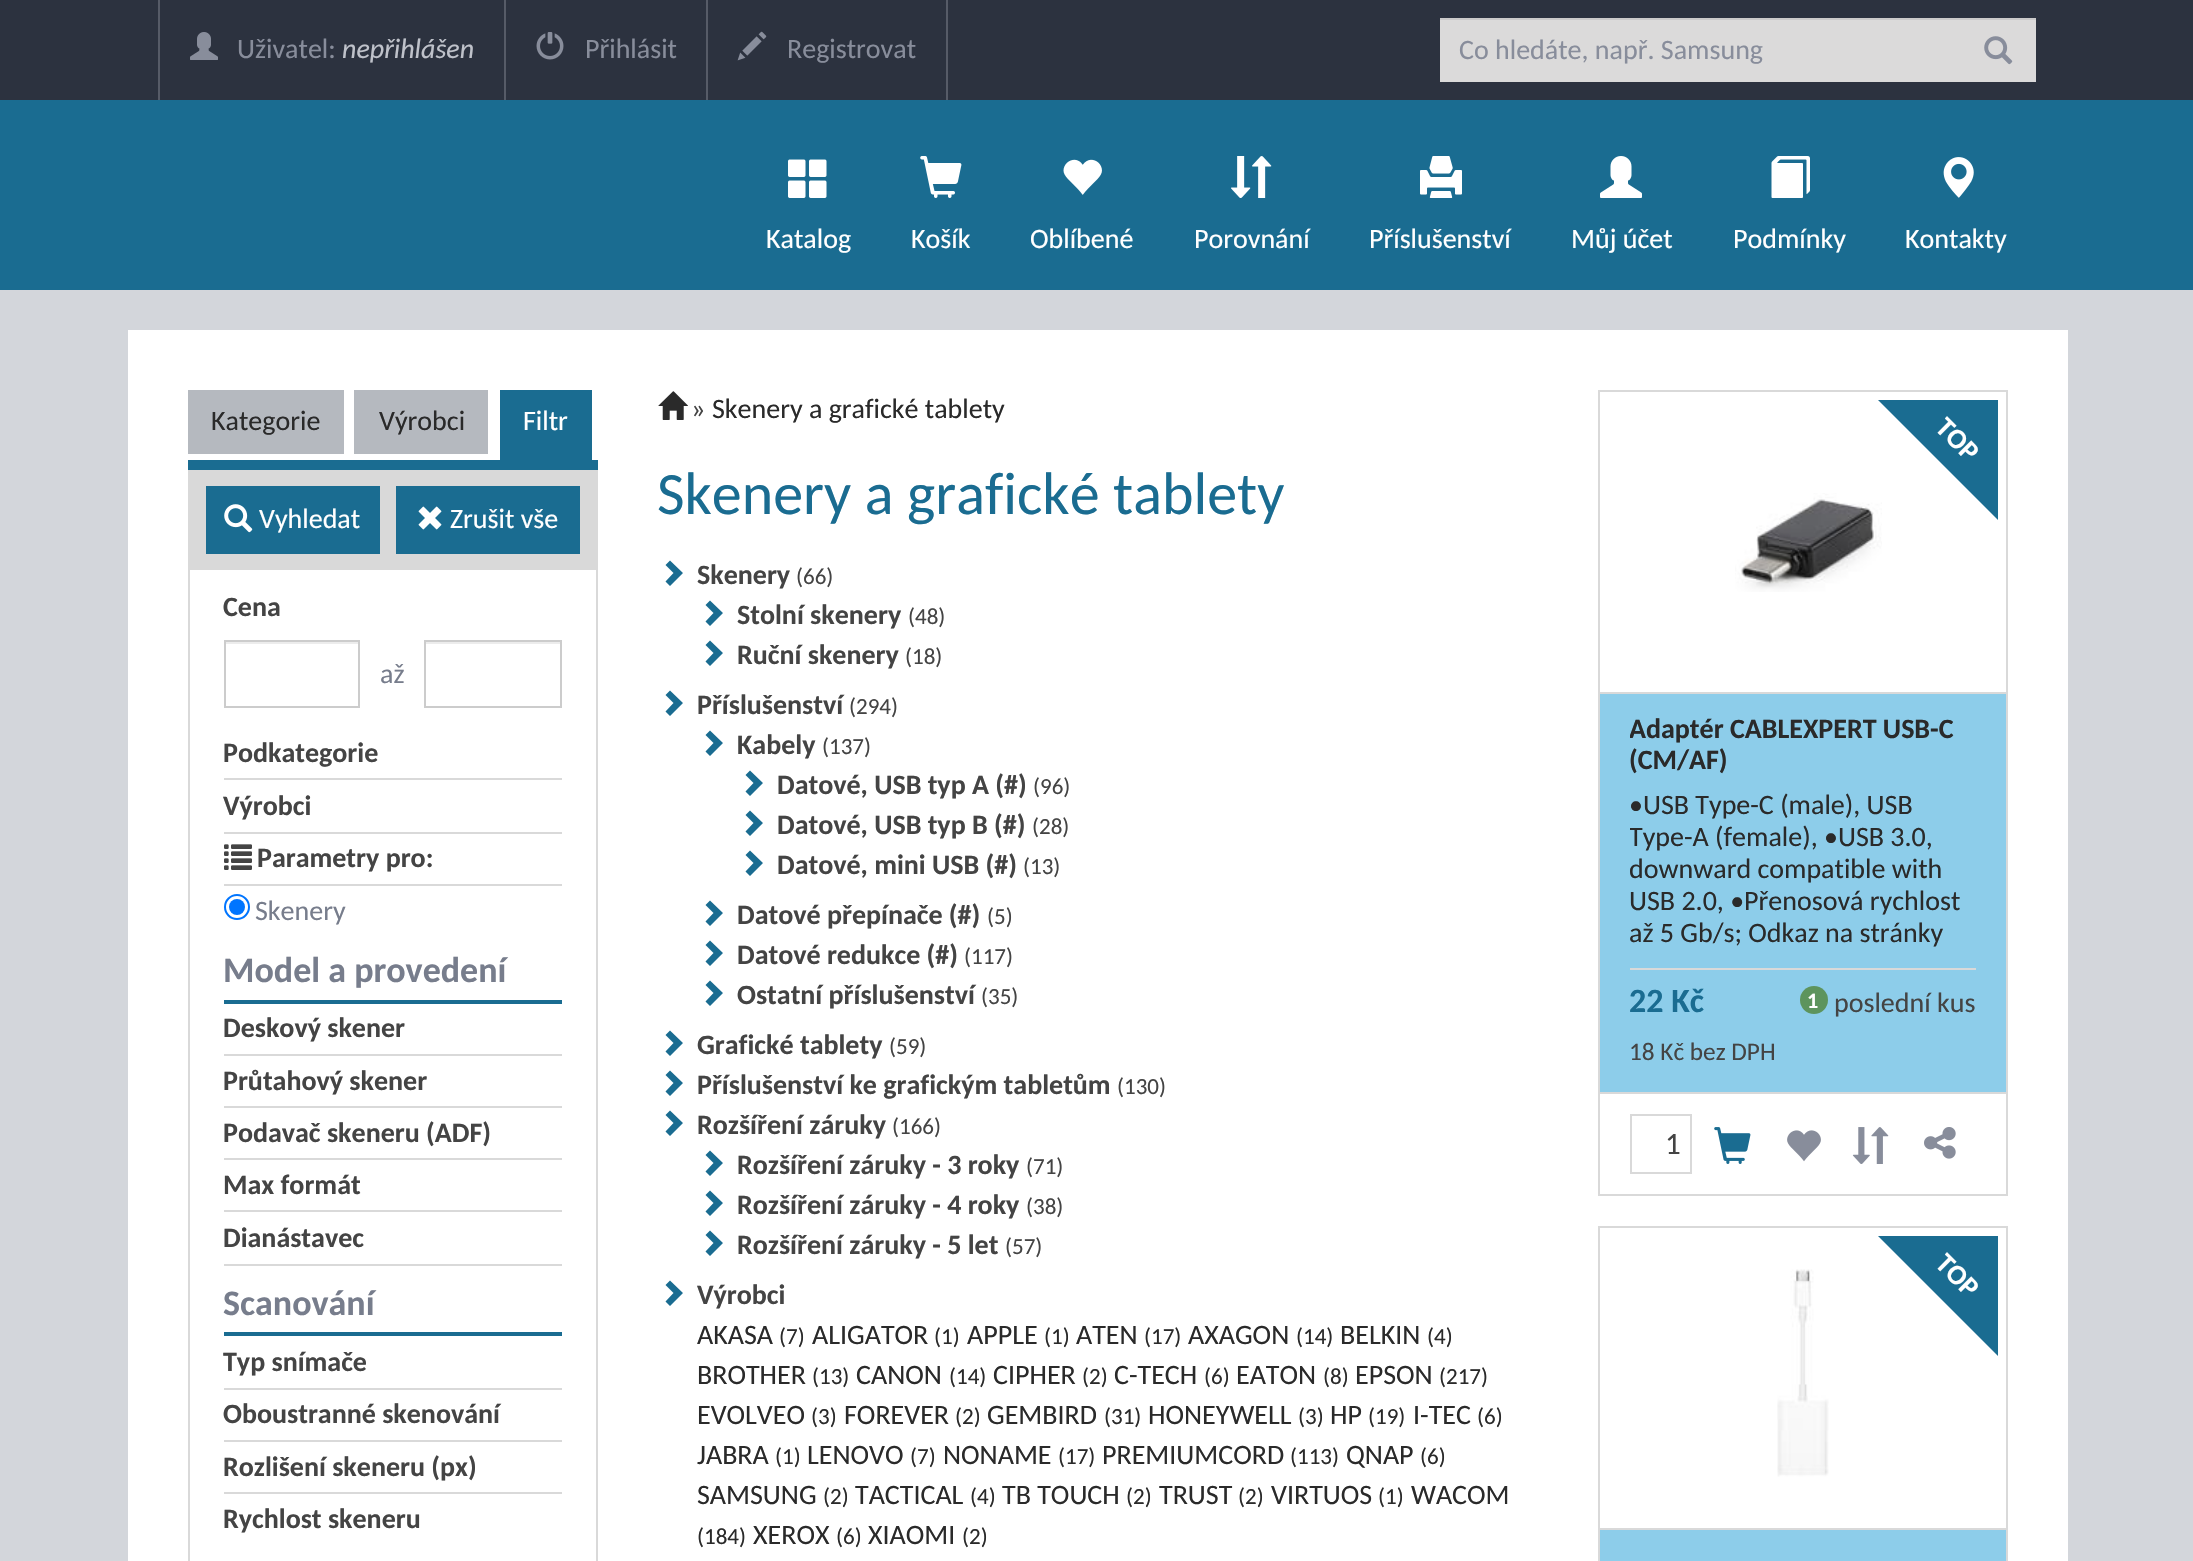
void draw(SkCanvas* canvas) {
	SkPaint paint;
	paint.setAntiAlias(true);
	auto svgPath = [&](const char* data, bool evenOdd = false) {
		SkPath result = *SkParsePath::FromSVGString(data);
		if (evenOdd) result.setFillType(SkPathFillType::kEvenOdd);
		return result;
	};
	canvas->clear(0xffd3d6db);
	paint.setColor(0xff2c323f);
	canvas->drawRect(SkRect::MakeXYWH(0, 0, 2193, 100), paint);
	paint.setColor(0xff565b67);
	canvas->drawRect(SkRect::MakeXYWH(158, 0, 2, 100), paint);
	canvas->drawImageRect(SkImages::DeferredFromEncodedData(SkData::MakeFromFileName("img1.png")), SkRect::MakeXYWH(190, 32, 28, 28), SkSamplingOptions());
	SkFont f1(fontMgr->matchFamilyStyle("Carlito", SkFontStyle::Normal()), 28);
	f1.setSubpixel(true);
	paint.setColor(0xff888d9b);
	canvas->drawString("Uživatel:", 237, 58, f1, paint);
	SkFont f2(fontMgr->matchFamilyStyle("Carlito", SkFontStyle::Italic()), 28);
	f2.setSubpixel(true);
	paint.setColor(0xffbfc2ca);
	canvas->drawString("nepřihlášen", 342, 58, f2, paint);
	paint.setColor(0xff565b67);
	canvas->drawRect(SkRect::MakeXYWH(504, 0, 2, 100), paint);
	canvas->drawImageRect(SkImages::DeferredFromEncodedData(SkData::MakeFromFileName("img2.png")), SkRect::MakeXYWH(536, 32, 28, 28), SkSamplingOptions());
	paint.setColor(0xff888d9b);
	canvas->drawString("Přihlásit", 585, 58, f1, paint);
	paint.setColor(0xff565b67);
	canvas->drawRect(SkRect::MakeXYWH(946, 0, 2, 100), paint);
	canvas->drawRect(SkRect::MakeXYWH(706, 0, 2, 100), paint);
	canvas->drawImageRect(SkImages::DeferredFromEncodedData(SkData::MakeFromFileName("img3.png")), SkRect::MakeXYWH(737, 31, 30, 30), SkSamplingOptions());
	paint.setColor(0xff888d9b);
	canvas->drawString("Registrovat", 787, 58, f1, paint);
	paint.setColor(0xffdbdada);
	canvas->drawRect(SkRect::MakeXYWH(1440, 20, 596, 62), paint);
	paint.setColor(0xffcbcaca);
	canvas->drawRect(SkRect::MakeXYWH(1440, 18, 596, 2), paint);
	paint.setColor(0xff888d9b);
	canvas->drawString("Co hledáte, např. Samsung", 1459, 59, f1, paint);
	canvas->drawImageRect(SkImages::DeferredFromEncodedData(SkData::MakeFromFileName("img4.png")), SkRect::MakeXYWH(1984, 36, 29, 29), SkSamplingOptions());
	paint.setColor(0xff1a6c91);
	canvas->drawRect(SkRect::MakeXYWH(0, 100, 2193, 190), paint);
	canvas->drawImageRect(SkImages::DeferredFromEncodedData(SkData::MakeFromFileName("img5.png")), SkRect::MakeXYWH(788, 159, 39, 39), SkSamplingOptions());
	paint.setColor(0xffffffff);
	canvas->drawString("Katalog", 766, 248, f1, paint);
	canvas->drawImageRect(SkImages::DeferredFromEncodedData(SkData::MakeFromFileName("img6.png")), SkRect::MakeXYWH(920, 156, 42, 42), SkSamplingOptions());
	canvas->drawString("Košík", 911, 248, f1, paint);
	canvas->drawImageRect(SkImages::DeferredFromEncodedData(SkData::MakeFromFileName("img7.png")), SkRect::MakeXYWH(1063, 159, 39, 36), SkSamplingOptions());
	canvas->drawString("Oblíbené", 1030, 248, f1, paint);
	canvas->drawImageRect(SkImages::DeferredFromEncodedData(SkData::MakeFromFileName("img8.png")), SkRect::MakeXYWH(1231, 156, 41, 42), SkSamplingOptions());
	canvas->drawString("Porovnání", 1194, 248, f1, paint);
	canvas->drawImageRect(SkImages::DeferredFromEncodedData(SkData::MakeFromFileName("img9.png")), SkRect::MakeXYWH(1420, 156, 42, 42), SkSamplingOptions());
	canvas->drawString("Příslušenství", 1369, 248, f1, paint);
	canvas->drawImageRect(SkImages::DeferredFromEncodedData(SkData::MakeFromFileName("img10.png")), SkRect::MakeXYWH(1600, 156, 42, 42), SkSamplingOptions());
	canvas->drawString("Můj účet", 1571, 248, f1, paint);
	canvas->drawImageRect(SkImages::DeferredFromEncodedData(SkData::MakeFromFileName("img11.png")), SkRect::MakeXYWH(1771, 156, 39, 42), SkSamplingOptions());
	canvas->drawString("Podmínky", 1733, 248, f1, paint);
	canvas->drawImageRect(SkImages::DeferredFromEncodedData(SkData::MakeFromFileName("img12.png")), SkRect::MakeXYWH(1943, 157, 31, 41), SkSamplingOptions());
	canvas->drawString("Kontakty", 1905, 248, f1, paint);
	canvas->drawRect(SkRect::MakeXYWH(128, 330, 1940, 1231), paint);
	paint.setColor(0xff1a6c91);
	canvas->drawRect(SkRect::MakeXYWH(188, 460, 410, 10), paint);
	paint.setColor(0xffb5b9bf);
	canvas->drawRect(SkRect::MakeXYWH(188, 390, 156, 64), paint);
	paint.setColor(0xff2a2a2a);
	canvas->drawString("Kategorie", 211, 430, f1, paint);
	paint.setColor(0xffb5b9bf);
	canvas->drawRect(SkRect::MakeXYWH(354, 390, 134, 64), paint);
	paint.setColor(0xff2a2a2a);
	canvas->drawString("Výrobci", 379, 430, f1, paint);
	paint.setColor(0xff1a6c91);
	canvas->drawRect(SkRect::MakeXYWH(500, 390, 92, 70), paint);
	paint.setColor(0xffffffff);
	canvas->drawString("Filtr", 523, 430, f1, paint);
	paint.setColor(0xffd9d9d9);
	canvas->drawRect(SkRect::MakeXYWH(596, 470, 2, 1091), paint);
	canvas->drawRect(SkRect::MakeXYWH(188, 470, 2, 1091), paint);
	canvas->drawRect(SkRect::MakeXYWH(190, 470, 406, 100), paint);
	paint.setColor(0xff1a6c91);
	canvas->drawRect(SkRect::MakeXYWH(206, 486, 174, 68), paint);
	canvas->drawImageRect(SkImages::DeferredFromEncodedData(SkData::MakeFromFileName("img13.png")), SkRect::MakeXYWH(224, 504, 29, 29), SkSamplingOptions());
	paint.setColor(0xffffffff);
	canvas->drawString("Vyhledat", 259, 528, f1, paint);
	paint.setColor(0xff1a6c91);
	canvas->drawRect(SkRect::MakeXYWH(396, 486, 184, 68), paint);
	canvas->drawImageRect(SkImages::DeferredFromEncodedData(SkData::MakeFromFileName("img14.png")), SkRect::MakeXYWH(418, 506, 24, 24), SkSamplingOptions());
	paint.setColor(0xffffffff);
	canvas->drawString("Zrušit vše", 450, 528, f1, paint);
	SkFont f3(fontMgr->matchFamilyStyle("Carlito", SkFontStyle::Bold()), 28);
	f3.setSubpixel(true);
	paint.setColor(0xff444444);
	canvas->drawString("Cena", 223, 616, f3, paint);
	paint.setColor(0xffececec);
	canvas->drawRect(SkRect::MakeXYWH(226, 642, 132, 2), paint);
	paint.setStroke(true);
	paint.setStrokeWidth(2);
	paint.setColor(0xffcccccc);
	canvas->drawRect(SkRect::MakeXYWH(225, 641, 134, 66), paint);
	paint.setStroke(false);
	paint.setColor(0xff777d8c);
	canvas->drawString("až", 380, 683, f1, paint);
	paint.setColor(0xffececec);
	canvas->drawRect(SkRect::MakeXYWH(426, 642, 134, 2), paint);
	paint.setStroke(true);
	paint.setColor(0xffcccccc);
	canvas->drawRect(SkRect::MakeXYWH(425, 641, 136, 66), paint);
	paint.setStroke(false);
	paint.setColor(0xffd9d9d9);
	canvas->drawRect(SkRect::MakeXYWH(224, 778, 338, 2), paint);
	paint.setColor(0xff444444);
	canvas->drawString("Podkategorie", 223, 762, f3, paint);
	paint.setColor(0xffd9d9d9);
	canvas->drawRect(SkRect::MakeXYWH(224, 832, 338, 2), paint);
	paint.setColor(0xff444444);
	canvas->drawString("Výrobci", 223, 815, f3, paint);
	paint.setColor(0xffd9d9d9);
	canvas->drawRect(SkRect::MakeXYWH(224, 884, 338, 2), paint);
	canvas->drawImageRect(SkImages::DeferredFromEncodedData(SkData::MakeFromFileName("img15.png")), SkRect::MakeXYWH(224, 844, 28, 26), SkSamplingOptions());
	paint.setColor(0xff444444);
	canvas->drawString("Parametry pro:", 257, 867, f3, paint);
	paint.setStroke(true);
	paint.setColor(0xff0075ff);
	canvas->drawCircle(237, 907, 12, paint);
	paint.setStroke(false);
	canvas->drawCircle(237, 907, 8, paint);
	paint.setColor(0xff777d8c);
	canvas->drawString("Skenery", 255, 920, f1, paint);
	paint.setColor(0xff1a6c91);
	canvas->drawRect(SkRect::MakeXYWH(224, 1000, 338, 4), paint);
	SkFont f4(fontMgr->matchFamilyStyle("Carlito", SkFontStyle::Bold()), 36);
	f4.setSubpixel(true);
	paint.setColor(0xff777d8c);
	canvas->drawString("Model a provedení", 223, 982, f4, paint);
	paint.setColor(0xffd9d9d9);
	canvas->drawRect(SkRect::MakeXYWH(224, 1054, 338, 2), paint);
	paint.setColor(0xff444444);
	canvas->drawString("Deskový skener", 223, 1037, f3, paint);
	paint.setColor(0xffd9d9d9);
	canvas->drawRect(SkRect::MakeXYWH(224, 1106, 338, 2), paint);
	paint.setColor(0xff444444);
	canvas->drawString("Průtahový skener", 223, 1090, f3, paint);
	paint.setColor(0xffd9d9d9);
	canvas->drawRect(SkRect::MakeXYWH(224, 1158, 338, 2), paint);
	paint.setColor(0xff444444);
	canvas->drawString("Podavač skeneru (ADF)", 223, 1142, f3, paint);
	paint.setColor(0xffd9d9d9);
	canvas->drawRect(SkRect::MakeXYWH(224, 1210, 338, 2), paint);
	paint.setColor(0xff444444);
	canvas->drawString("Max formát", 223, 1194, f3, paint);
	paint.setColor(0xffd9d9d9);
	canvas->drawRect(SkRect::MakeXYWH(224, 1264, 338, 2), paint);
	paint.setColor(0xff444444);
	canvas->drawString("Dianástavec", 223, 1247, f3, paint);
	paint.setColor(0xff1a6c91);
	canvas->drawRect(SkRect::MakeXYWH(224, 1332, 338, 4), paint);
	paint.setColor(0xff777d8c);
	canvas->drawString("Scanování", 223, 1315, f4, paint);
	paint.setColor(0xffd9d9d9);
	canvas->drawRect(SkRect::MakeXYWH(224, 1388, 338, 2), paint);
	paint.setColor(0xff444444);
	canvas->drawString("Typ snímače", 223, 1371, f3, paint);
	paint.setColor(0xffd9d9d9);
	canvas->drawRect(SkRect::MakeXYWH(224, 1440, 338, 2), paint);
	paint.setColor(0xff444444);
	canvas->drawString("Oboustranné skenování", 223, 1423, f3, paint);
	paint.setColor(0xffd9d9d9);
	canvas->drawRect(SkRect::MakeXYWH(224, 1492, 338, 2), paint);
	paint.setColor(0xff444444);
	canvas->drawString("Rozlišení skeneru (px)", 223, 1476, f3, paint);
	canvas->drawString("Rychlost skeneru", 223, 1528, f3, paint);
	canvas->drawImageRect(SkImages::DeferredFromEncodedData(SkData::MakeFromFileName("img16.png")), SkRect::MakeXYWH(658, 391, 30, 29), SkSamplingOptions());
	canvas->drawString("»", 691, 418, f1, paint);
	paint.setColor(0xff2a2a2a);
	canvas->drawString("Skenery a grafické tablety", 712, 418, f1, paint);
	SkFont f5(fontMgr->matchFamilyStyle("Carlito", SkFontStyle::Normal()), 60);
	f5.setSubpixel(true);
	paint.setColor(0xff1a6c91);
	canvas->drawString("Skenery a grafické tablety", 657, 514, f5, paint);
	canvas->drawPath(svgPath("M683 573L670 586L665.5 581.5L673.5 573L665.5 565L670 560.5Z"), paint);
	paint.setColor(0xff444444);
	canvas->drawString("Skenery", 697, 584, f3, paint);
	SkFont f6(fontMgr->matchFamilyStyle("Carlito", SkFontStyle::Normal()), 23);
	f6.setSubpixel(true);
	canvas->drawString("(66)", 796, 584, f6, paint);
	paint.setColor(0xff1a6c91);
	canvas->drawPath(svgPath("M723 613L710 626L705.5 621.5L713.5 613L705.5 605L710 600.5Z"), paint);
	paint.setColor(0xff444444);
	canvas->drawString("Stolní skenery", 737, 624, f3, paint);
	canvas->drawString("(48)", 908, 624, f6, paint);
	paint.setColor(0xff1a6c91);
	canvas->drawPath(svgPath("M723 653L710 666L705.5 661.5L713.5 653L705.5 645L710 640.5Z"), paint);
	paint.setColor(0xff444444);
	canvas->drawString("Ruční skenery", 737, 664, f3, paint);
	canvas->drawString("(18)", 905, 664, f6, paint);
	paint.setColor(0xff1a6c91);
	canvas->drawPath(svgPath("M683 703L670 716L665.5 711.5L673.5 703L665.5 695L670 690.5Z"), paint);
	paint.setColor(0xff444444);
	canvas->drawString("Příslušenství", 697, 714, f3, paint);
	canvas->drawString("(294)", 849, 714, f6, paint);
	paint.setColor(0xff1a6c91);
	canvas->drawPath(svgPath("M723 743L710 756L705.5 751.5L713.5 743L705.5 735L710 730.5Z"), paint);
	paint.setColor(0xff444444);
	canvas->drawString("Kabely", 737, 754, f3, paint);
	canvas->drawString("(137)", 822, 754, f6, paint);
	paint.setColor(0xff1a6c91);
	canvas->drawPath(svgPath("M763 783L750 796L745.5 791.5L753.5 783L745.5 775L750 770.5Z"), paint);
	paint.setColor(0xff444444);
	canvas->drawString("Datové, USB typ A (#)", 777, 794, f3, paint);
	canvas->drawString("(96)", 1033, 794, f6, paint);
	paint.setColor(0xff1a6c91);
	canvas->drawPath(svgPath("M763 823L750 836L745.5 831.5L753.5 823L745.5 815L750 810.5Z"), paint);
	paint.setColor(0xff444444);
	canvas->drawString("Datové, USB typ B (#)", 777, 834, f3, paint);
	canvas->drawString("(28)", 1032, 834, f6, paint);
	paint.setColor(0xff1a6c91);
	canvas->drawPath(svgPath("M763 863L750 876L745.5 871.5L753.5 863L745.5 855L750 850.5Z"), paint);
	paint.setColor(0xff444444);
	canvas->drawString("Datové, mini USB (#)", 777, 874, f3, paint);
	canvas->drawString("(13)", 1023, 874, f6, paint);
	paint.setColor(0xff1a6c91);
	canvas->drawPath(svgPath("M723 913L710 926L705.5 921.5L713.5 913L705.5 905L710 900.5Z"), paint);
	paint.setColor(0xff444444);
	canvas->drawString("Datové přepínače (#)", 737, 924, f3, paint);
	canvas->drawString("(5)", 987, 924, f6, paint);
	paint.setColor(0xff1a6c91);
	canvas->drawPath(svgPath("M723 953L710 966L705.5 961.5L713.5 953L705.5 945L710 940.5Z"), paint);
	paint.setColor(0xff444444);
	canvas->drawString("Datové redukce (#)", 737, 964, f3, paint);
	canvas->drawString("(117)", 964, 964, f6, paint);
	paint.setColor(0xff1a6c91);
	canvas->drawPath(svgPath("M723 993L710 1006L705.5 1001.5L713.5 993L705.5 985L710 980.5Z"), paint);
	paint.setColor(0xff444444);
	canvas->drawString("Ostatní příslušenství", 737, 1004, f3, paint);
	canvas->drawString("(35)", 981, 1004, f6, paint);
	paint.setColor(0xff1a6c91);
	canvas->drawPath(svgPath("M683 1043L670 1056L665.5 1051.5L673.5 1043L665.5 1035L670 1030.5Z"), paint);
	paint.setColor(0xff444444);
	canvas->drawString("Grafické tablety", 697, 1054, f3, paint);
	canvas->drawString("(59)", 889, 1054, f6, paint);
	paint.setColor(0xff1a6c91);
	canvas->drawPath(svgPath("M683 1083L670 1096L665.5 1091.5L673.5 1083L665.5 1075L670 1070.5Z"), paint);
	paint.setColor(0xff444444);
	canvas->drawString("Příslušenství ke grafickým tabletům", 697, 1094, f3, paint);
	canvas->drawString("(130)", 1117, 1094, f6, paint);
	paint.setColor(0xff1a6c91);
	canvas->drawPath(svgPath("M683 1123L670 1136L665.5 1131.5L673.5 1123L665.5 1115L670 1110.5Z"), paint);
	paint.setColor(0xff444444);
	canvas->drawString("Rozšíření záruky", 697, 1134, f3, paint);
	canvas->drawString("(166)", 892, 1134, f6, paint);
	paint.setColor(0xff1a6c91);
	canvas->drawPath(svgPath("M723 1163L710 1176L705.5 1171.5L713.5 1163L705.5 1155L710 1150.5Z"), paint);
	paint.setColor(0xff444444);
	canvas->drawString("Rozšíření záruky - 3 roky", 737, 1174, f3, paint);
	canvas->drawString("(71)", 1026, 1174, f6, paint);
	paint.setColor(0xff1a6c91);
	canvas->drawPath(svgPath("M723 1203L710 1216L705.5 1211.5L713.5 1203L705.5 1195L710 1190.5Z"), paint);
	paint.setColor(0xff444444);
	canvas->drawString("Rozšíření záruky - 4 roky", 737, 1214, f3, paint);
	canvas->drawString("(38)", 1026, 1214, f6, paint);
	paint.setColor(0xff1a6c91);
	canvas->drawPath(svgPath("M723 1243L710 1256L705.5 1251.5L713.5 1243L705.5 1235L710 1230.5Z"), paint);
	paint.setColor(0xff444444);
	canvas->drawString("Rozšíření záruky - 5 let", 737, 1254, f3, paint);
	canvas->drawString("(57)", 1005, 1254, f6, paint);
	paint.setColor(0xff1a6c91);
	canvas->drawPath(svgPath("M683 1293L670 1306L665.5 1301.5L673.5 1293L665.5 1285L670 1280.5Z"), paint);
	paint.setColor(0xff444444);
	canvas->drawString("Výrobci", 697, 1304, f3, paint);
	paint.setColor(0xff2a2a2a);
	canvas->drawString("AKASA", 697, 1344, f1, paint);
	canvas->drawString("(7)", 779, 1344, f6, paint);
	canvas->drawString("ALIGATOR", 812, 1344, f1, paint);
	canvas->drawString("(1)", 934, 1344, f6, paint);
	canvas->drawString("APPLE", 967, 1344, f1, paint);
	canvas->drawString("(1)", 1044, 1344, f6, paint);
	canvas->drawString("ATEN", 1076, 1344, f1, paint);
	canvas->drawString("(17)", 1144, 1344, f6, paint);
	canvas->drawString("AXAGON", 1188, 1344, f1, paint);
	canvas->drawString("(14)", 1296, 1344, f6, paint);
	canvas->drawString("BELKIN", 1340, 1344, f1, paint);
	canvas->drawString("(4)", 1427, 1344, f6, paint);
	canvas->drawString("BROTHER", 697, 1384, f1, paint);
	canvas->drawString("(13)", 812, 1384, f6, paint);
	canvas->drawString("CANON", 856, 1384, f1, paint);
	canvas->drawString("(14)", 949, 1384, f6, paint);
	canvas->drawString("CIPHER", 993, 1384, f1, paint);
	canvas->drawString("(2)", 1082, 1384, f6, paint);
	canvas->drawString("C-TECH", 1114, 1384, f1, paint);
	canvas->drawString("(6)", 1204, 1384, f6, paint);
	canvas->drawString("EATON", 1236, 1384, f1, paint);
	canvas->drawString("(8)", 1323, 1384, f6, paint);
	canvas->drawString("EPSON", 1355, 1384, f1, paint);
	canvas->drawString("(217)", 1439, 1384, f6, paint);
	canvas->drawString("EVOLVEO", 697, 1424, f1, paint);
	canvas->drawString("(3)", 811, 1424, f6, paint);
	canvas->drawString("FOREVER", 844, 1424, f1, paint);
	canvas->drawString("(2)", 955, 1424, f6, paint);
	canvas->drawString("GEMBIRD", 987, 1424, f1, paint);
	canvas->drawString("(31)", 1104, 1424, f6, paint);
	canvas->drawString("HONEYWELL", 1148, 1424, f1, paint);
	canvas->drawString("(3)", 1298, 1424, f6, paint);
	canvas->drawString("HP", 1330, 1424, f1, paint);
	canvas->drawString("(19)", 1368, 1424, f6, paint);
	canvas->drawString("I-TEC", 1413, 1424, f1, paint);
	canvas->drawString("(6)", 1477, 1424, f6, paint);
	canvas->drawString("JABRA", 697, 1464, f1, paint);
	canvas->drawString("(1)", 775, 1464, f6, paint);
	canvas->drawString("LENOVO", 807, 1464, f1, paint);
	canvas->drawString("(7)", 910, 1464, f6, paint);
	canvas->drawString("NONAME", 943, 1464, f1, paint);
	canvas->drawString("(17)", 1058, 1464, f6, paint);
	canvas->drawString("PREMIUMCORD", 1102, 1464, f1, paint);
	canvas->drawString("(113)", 1290, 1464, f6, paint);
	canvas->drawString("QNAP", 1346, 1464, f1, paint);
	canvas->drawString("(6)", 1420, 1464, f6, paint);
	canvas->drawString("SAMSUNG", 697, 1504, f1, paint);
	canvas->drawString("(2)", 823, 1504, f6, paint);
	canvas->drawString("TACTICAL", 855, 1504, f1, paint);
	canvas->drawString("(4)", 970, 1504, f6, paint);
	canvas->drawString("TB TOUCH", 1002, 1504, f1, paint);
	canvas->drawString("(2)", 1126, 1504, f6, paint);
	canvas->drawString("TRUST", 1159, 1504, f1, paint);
	canvas->drawString("(2)", 1238, 1504, f6, paint);
	canvas->drawString("VIRTUOS", 1271, 1504, f1, paint);
	canvas->drawString("(1)", 1378, 1504, f6, paint);
	canvas->drawString("WACOM", 1411, 1504, f1, paint);
	canvas->drawString("(184)", 697, 1544, f6, paint);
	canvas->drawString("XEROX", 753, 1544, f1, paint);
	canvas->drawString("(6)", 836, 1544, f6, paint);
	canvas->drawString("XIAOMI", 868, 1544, f1, paint);
	canvas->drawString("(2)", 962, 1544, f6, paint);
	paint.setColor(0xff8dcdea);
	canvas->drawRect(SkRect::MakeXYWH(1600, 694, 406, 398), paint);
	paint.setStroke(true);
	paint.setColor(0xffd9d9d9);
	canvas->drawRect(SkRect::MakeXYWH(1599, 391, 408, 804), paint);
	canvas->drawImageRect(SkImages::DeferredFromEncodedData(SkData::MakeFromFileName("img17.png")), SkRect::MakeXYWH(1735, 493, 147, 99), SkSamplingOptions());
	paint.setStroke(false);
	paint.setColor(0xff1a6c91);
	canvas->drawPath(svgPath("M1998 400V520L1878 400Z"), paint);
	paint.setColor(0xffffffff);
	canvas->save();
	canvas->rotate(45, 1934, 429);
	canvas->drawString("TOP", 1934, 429, f3, paint);
	canvas->restore();
	paint.setColor(0xffd9d9d9);
	canvas->drawRect(SkRect::MakeXYWH(1600, 692, 406, 2), paint);
	canvas->save();
	canvas->clipRect(SkRect::MakeXYWH(1630, 694, 346, 254));
	paint.setColor(0xff2a2a2a);
	canvas->drawString("Adaptér CABLEXPERT USB-C", 1629, 738, f3, paint);
	canvas->restore();
	canvas->drawString("(CM/AF)", 1629, 769, f3, paint);
	canvas->drawString("•USB Type-C (male), USB", 1629, 814, f1, paint);
	canvas->save();
	canvas->clipRect(SkRect::MakeXYWH(1630, 694, 346, 254));
	canvas->drawString("Type-A (female),", 1629, 846, f1, paint);
	canvas->restore();
	canvas->drawString("•USB 3.0,", 1824, 846, f1, paint);
	canvas->drawString("downward compatible with", 1629, 878, f1, paint);
	canvas->drawString("USB 2.0, •Přenosová rychlost", 1629, 910, f1, paint);
	canvas->drawString("až 5 Gb/s; Odkaz na stránky", 1629, 942, f1, paint);
	paint.setColor(0xffd9d9d9);
	canvas->drawRect(SkRect::MakeXYWH(1630, 968, 346, 2), paint);
	SkFont f7(fontMgr->matchFamilyStyle("Carlito", SkFontStyle::Bold()), 34);
	f7.setSubpixel(true);
	paint.setColor(0xff1a6c91);
	canvas->drawString("22 Kč", 1629, 1012, f7, paint);
	SkFont f8(fontMgr->matchFamilyStyle("Carlito", SkFontStyle::Normal()), 25.25);
	f8.setSubpixel(true);
	paint.setColor(0xff444444);
	canvas->drawString("18 Kč bez DPH", 1629, 1060, f8, paint);
	paint.setColor(0xff5d945d);
	canvas->drawCircle(1814, 1000, 14, paint);
	SkFont f9(fontMgr->matchFamilyStyle("Carlito", SkFontStyle::Bold()), 22);
	f9.setSubpixel(true);
	paint.setColor(0xffffffff);
	canvas->drawString("1", 1807, 1008, f9, paint);
	paint.setColor(0xff444444);
	canvas->drawString("poslední kus", 1834, 1012, f1, paint);
	paint.setColor(0xffd9d9d9);
	canvas->drawRect(SkRect::MakeXYWH(1600, 1092, 406, 2), paint);
	paint.setStroke(true);
	canvas->drawRect(SkRect::MakeXYWH(1631, 1115, 60, 58), paint);
	SkFont f10(fontMgr->matchFamilyStyle("Carlito", SkFontStyle::Normal()), 31);
	f10.setSubpixel(true);
	paint.setStroke(false);
	paint.setColor(0xff444444);
	canvas->drawString("1", 1665, 1154, f10, paint);
	canvas->drawImageRect(SkImages::DeferredFromEncodedData(SkData::MakeFromFileName("img18.png")), SkRect::MakeXYWH(1714, 1127, 37, 37), SkSamplingOptions());
	canvas->drawImageRect(SkImages::DeferredFromEncodedData(SkData::MakeFromFileName("img19.png")), SkRect::MakeXYWH(1787, 1130, 34, 32), SkSamplingOptions());
	canvas->drawImageRect(SkImages::DeferredFromEncodedData(SkData::MakeFromFileName("img20.png")), SkRect::MakeXYWH(1852, 1127, 37, 37), SkSamplingOptions());
	canvas->drawImageRect(SkImages::DeferredFromEncodedData(SkData::MakeFromFileName("img21.png")), SkRect::MakeXYWH(1924, 1127, 32, 32), SkSamplingOptions());
	paint.setColor(0xff8dcdea);
	canvas->drawRect(SkRect::MakeXYWH(1600, 1530, 406, 31), paint);
	paint.setStroke(true);
	paint.setColor(0xffd9d9d9);
	canvas->drawRect(SkRect::MakeXYWH(1599, 1227, 408, 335), paint);
	canvas->drawImageRect(SkImages::DeferredFromEncodedData(SkData::MakeFromFileName("img22.png")), SkRect::MakeXYWH(1777, 1269, 52, 208), SkSamplingOptions());
	paint.setStroke(false);
	paint.setColor(0xff1a6c91);
	canvas->drawPath(svgPath("M1998 1236V1356L1878 1236Z"), paint);
	paint.setColor(0xffffffff);
	canvas->save();
	canvas->rotate(45, 1934, 1265);
	canvas->drawString("TOP", 1934, 1265, f3, paint);
	canvas->restore();
	paint.setColor(0xffd9d9d9);
	canvas->drawRect(SkRect::MakeXYWH(1600, 1528, 406, 2), paint);
}
